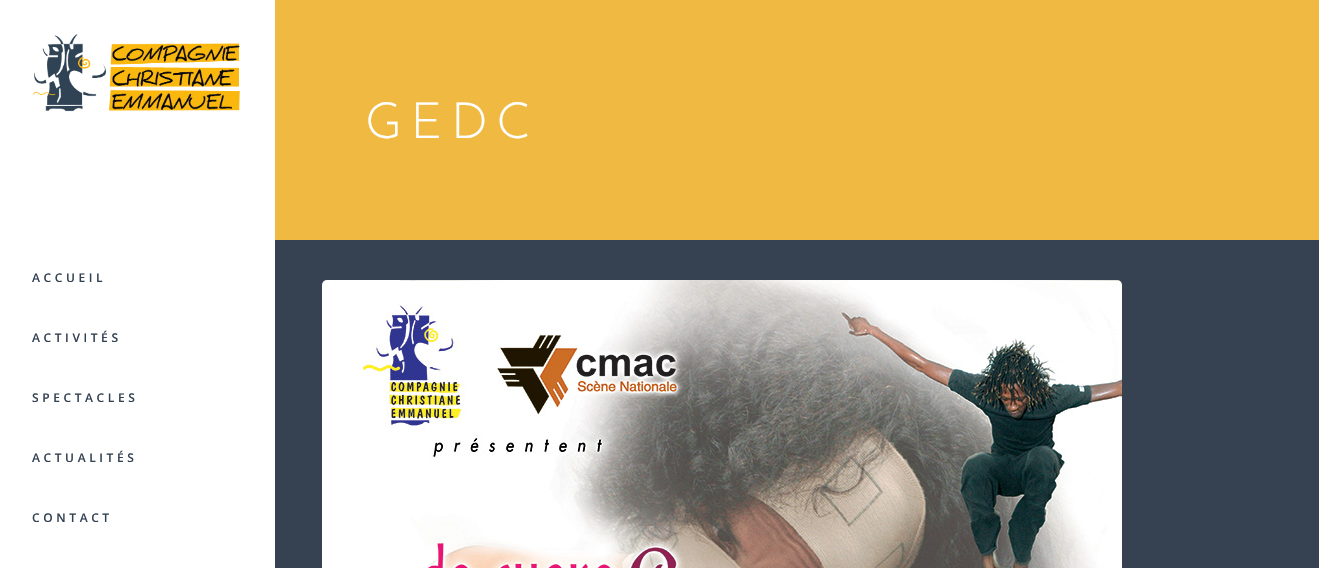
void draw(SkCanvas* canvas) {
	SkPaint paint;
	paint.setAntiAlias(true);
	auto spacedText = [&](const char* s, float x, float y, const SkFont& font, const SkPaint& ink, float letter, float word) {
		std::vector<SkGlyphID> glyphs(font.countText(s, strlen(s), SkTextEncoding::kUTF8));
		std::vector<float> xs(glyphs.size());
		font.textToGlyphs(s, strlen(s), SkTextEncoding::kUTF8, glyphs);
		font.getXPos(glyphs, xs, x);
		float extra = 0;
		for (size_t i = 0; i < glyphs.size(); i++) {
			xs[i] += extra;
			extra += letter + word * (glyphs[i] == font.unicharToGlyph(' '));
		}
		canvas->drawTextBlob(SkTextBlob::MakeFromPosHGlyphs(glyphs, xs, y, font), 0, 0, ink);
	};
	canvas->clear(0xff364251);
	paint.setColor(0xfff0ba42);
	canvas->drawRect(SkRect::MakeXYWH(275, 0, 1044, 240), paint);
	SkFont f1(fontMgr->matchFamilyStyle("Josefin Sans", SkFontStyle(300, SkFontStyle::kNormal_Width, SkFontStyle::kUpright_Slant)), 50);
	f1.setSubpixel(true);
	paint.setColor(0xffffffff);
	spacedText("GEDC", 365, 138, f1, paint, 8.5, 0);
	canvas->drawImageRect(SkImages::DeferredFromEncodedData(SkData::MakeFromFileName("img1.png")), SkRect::MakeXYWH(322, 280, 800, 288), SkSamplingOptions());
	canvas->drawRect(SkRect::MakeXYWH(0, 0, 275, 568), paint);
	canvas->drawImageRect(SkImages::DeferredFromEncodedData(SkData::MakeFromFileName("img2.png")), SkRect::MakeXYWH(33, 34, 207, 78), SkSamplingOptions());
	SkFont f2(fontMgr->matchFamilyStyle("Open Sans", SkFontStyle(600, SkFontStyle::kNormal_Width, SkFontStyle::kUpright_Slant)), 12);
	f2.setSubpixel(true);
	paint.setColor(0xff334253);
	spacedText("ACCUEIL", 32, 282, f2, paint, 3.6, 0);
	spacedText("ACTIVITÉS", 32, 342, f2, paint, 3.6, 0);
	spacedText("SPECTACLES", 32, 402, f2, paint, 3.6, 0);
	spacedText("ACTUALITÉS", 32, 462, f2, paint, 3.6, 0);
	spacedText("CONTACT", 32, 522, f2, paint, 3.6, 0);
}
